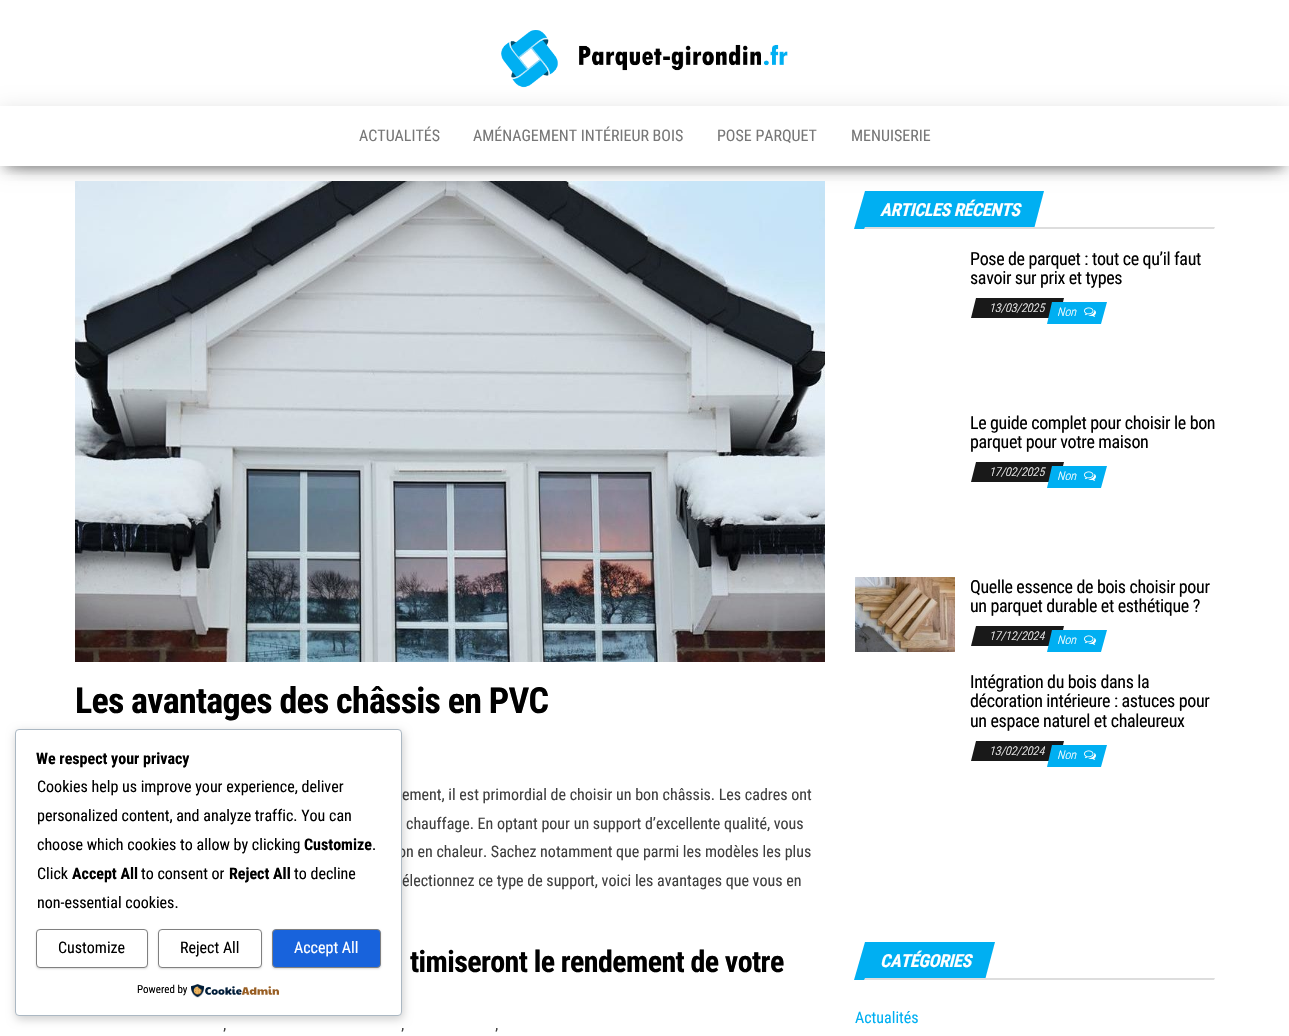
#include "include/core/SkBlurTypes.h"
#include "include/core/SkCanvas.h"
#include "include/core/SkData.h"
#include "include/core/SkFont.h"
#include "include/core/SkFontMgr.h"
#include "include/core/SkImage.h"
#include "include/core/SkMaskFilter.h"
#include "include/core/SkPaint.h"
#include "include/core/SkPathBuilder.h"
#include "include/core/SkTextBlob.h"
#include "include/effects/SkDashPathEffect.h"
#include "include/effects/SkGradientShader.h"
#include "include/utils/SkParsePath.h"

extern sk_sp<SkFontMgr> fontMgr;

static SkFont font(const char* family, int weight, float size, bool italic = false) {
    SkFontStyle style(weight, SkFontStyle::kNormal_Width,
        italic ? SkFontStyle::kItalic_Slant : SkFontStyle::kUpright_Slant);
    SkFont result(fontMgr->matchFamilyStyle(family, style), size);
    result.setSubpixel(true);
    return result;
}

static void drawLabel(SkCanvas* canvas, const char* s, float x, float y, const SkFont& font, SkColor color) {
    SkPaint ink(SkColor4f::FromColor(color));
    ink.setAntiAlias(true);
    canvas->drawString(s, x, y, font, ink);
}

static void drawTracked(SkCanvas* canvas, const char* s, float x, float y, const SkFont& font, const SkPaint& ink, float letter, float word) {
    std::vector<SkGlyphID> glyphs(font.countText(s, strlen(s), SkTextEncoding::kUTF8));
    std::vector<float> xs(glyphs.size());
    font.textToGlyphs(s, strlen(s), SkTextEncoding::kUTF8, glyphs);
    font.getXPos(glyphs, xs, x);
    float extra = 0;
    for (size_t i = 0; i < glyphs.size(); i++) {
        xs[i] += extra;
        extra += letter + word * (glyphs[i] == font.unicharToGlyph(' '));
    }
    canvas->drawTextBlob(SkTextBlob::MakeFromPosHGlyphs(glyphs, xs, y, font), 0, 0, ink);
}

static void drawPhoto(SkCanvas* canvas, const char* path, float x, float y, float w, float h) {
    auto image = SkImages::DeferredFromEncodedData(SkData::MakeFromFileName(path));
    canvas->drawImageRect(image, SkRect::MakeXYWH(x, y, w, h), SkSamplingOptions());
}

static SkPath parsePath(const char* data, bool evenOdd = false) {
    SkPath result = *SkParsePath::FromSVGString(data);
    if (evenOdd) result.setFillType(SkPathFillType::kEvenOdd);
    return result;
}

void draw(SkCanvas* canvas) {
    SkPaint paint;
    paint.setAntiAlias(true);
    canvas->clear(0xFFFFFFFF);
    canvas->save();
    canvas->clipPath(parsePath("M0 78H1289V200H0ZM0 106H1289V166H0Z", true), true);
    paint.setColor(0x1F000000);
    paint.setMaskFilter(SkMaskFilter::MakeBlur(kNormal_SkBlurStyle, 10));
    canvas->drawRect(SkRect::MakeXYWH(0, 109, 1289, 60), paint);
    paint.setMaskFilter(nullptr);
    canvas->restore();
    drawPhoto(canvas, "assets/img1.png", 501, 30, 287, 58);
    canvas->save();
    canvas->clipRect(SkRect::MakeXYWH(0, 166, 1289, 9));
    paint.setColor(0x33000000);
    paint.setMaskFilter(SkMaskFilter::MakeBlur(kNormal_SkBlurStyle, 5));
    canvas->drawRect(SkRect::MakeXYWH(5, 119, 1279, 50), paint);
    paint.setMaskFilter(nullptr);
    canvas->restore();
    canvas->save();
    canvas->clipRect(SkRect::MakeXYWH(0, 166, 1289, 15));
    paint.setColor(0x6B000000);
    paint.setMaskFilter(SkMaskFilter::MakeBlur(kNormal_SkBlurStyle, 10));
    canvas->drawRect(SkRect::MakeXYWH(12, 128, 1265, 36), paint);
    paint.setMaskFilter(nullptr);
    canvas->restore();
    SkFont font1 = font("Roboto Condensed", 400, 16);
    drawLabel(canvas, "ACTUALITÉS", 359, 141, font1, 0xFF777777);
    drawLabel(canvas, "AMÉNAGEMENT INTÉRIEUR BOIS", 473, 141, font1, 0xFF777777);
    drawLabel(canvas, "POSE PARQUET", 717, 141, font1, 0xFF777777);
    drawLabel(canvas, "MENUISERIE", 851, 141, font1, 0xFF777777);
    drawPhoto(canvas, "assets/img2.png", 75, 181, 750, 481);
    SkFont font2 = font("Roboto Condensed", 700, 36);
    paint.setColor(0xFF000000);
    drawTracked(canvas, "Les avantages des châssis en PVC", 75, 713, font2, paint, -0.75f, 0);
    drawLabel(canvas, "ement, il est primordial de choisir un bon châssis. Les cadres ont", 402, 800, font1, 0xFF404040);
    drawLabel(canvas, "chauffage. En optant pour un support d’excellente qualité, vous", 406, 829, font1, 0xFF404040);
    drawLabel(canvas, "on en chaleur. Sachez notamment que parmi les modèles les plus", 398, 857, font1, 0xFF404040);
    drawLabel(canvas, "électionnez ce type de support, voici les avantages que vous en", 402, 886, font1, 0xFF404040);
    SkFont font3 = font("Roboto Condensed", 700, 30);
    drawTracked(canvas, "timiseront le rendement de votre", 410, 972, font3, paint, -0.6f, 0);
    drawLabel(canvas, "’", 223, 1040, font1, 0xFF404040);
    drawLabel(canvas, "’", 401, 1040, font1, 0xFF404040);
    drawLabel(canvas, "’", 495, 1040, font1, 0xFF404040);
    paint.setColor(0xFF00AFF2);
    canvas->drawPath(parsePath("M865 191H1044L1034 229H854Z"), paint);
    SkFont font4 = font("Roboto Condensed", 700, 18, true);
    paint.setColor(0xFFFFFFFF);
    drawTracked(canvas, "ARTICLES RÉCENTS", 880, 216, font4, paint, -0.35f, 0);
    paint.setColor(0xFFDDDDDD);
    canvas->drawPath(parsePath("M865 227H1215L1214 229H864Z"), paint);
    SkFont font5 = font("Roboto Condensed", 400, 18);
    paint.setColor(0xFF000000);
    drawTracked(canvas, "Pose de parquet : tout ce qu’il faut", 970, 265, font5, paint, -0.35f, 0);
    drawTracked(canvas, "savoir sur prix et types", 970, 284, font5, paint, -0.35f, 0);
    paint.setColor(0xFF191919);
    canvas->drawPath(parsePath("M976 298H1064L1059 318H971Z"), paint);
    SkFont font6 = font("Roboto Condensed", 300, 12, true);
    drawLabel(canvas, "13/03/2025", 989, 312, font6, 0xFFFFFFFF);
    paint.setColor(0xFF00AFF2);
    canvas->drawPath(parsePath("M1052 302H1107L1101 324H1047Z"), paint);
    drawLabel(canvas, "Non", 1057, 316, font6, 0xFFFFFFFF);
    drawPhoto(canvas, "assets/img3.png", 1084, 307, 12, 10);
    paint.setColor(0xFF000000);
    drawTracked(canvas, "Le guide complet pour choisir le bon", 970, 429, font5, paint, -0.35f, 0);
    drawTracked(canvas, "parquet pour votre maison", 970, 448, font5, paint, -0.35f, 0);
    paint.setColor(0xFF191919);
    canvas->drawPath(parsePath("M976 462H1064L1059 482H971Z"), paint);
    drawLabel(canvas, "17/02/2025", 989, 476, font6, 0xFFFFFFFF);
    paint.setColor(0xFF00AFF2);
    canvas->drawPath(parsePath("M1052 466H1107L1101 488H1047Z"), paint);
    drawLabel(canvas, "Non", 1057, 480, font6, 0xFFFFFFFF);
    drawPhoto(canvas, "assets/img3.png", 1084, 471, 12, 10);
    drawPhoto(canvas, "assets/img4.png", 855, 577, 100, 75);
    paint.setColor(0xFF000000);
    drawTracked(canvas, "Quelle essence de bois choisir pour", 970, 593, font5, paint, -0.35f, 0);
    drawTracked(canvas, "un parquet durable et esthétique ?", 970, 612, font5, paint, -0.35f, 0);
    paint.setColor(0xFF191919);
    canvas->drawPath(parsePath("M976 626H1064L1059 646H971Z"), paint);
    drawLabel(canvas, "17/12/2024", 989, 640, font6, 0xFFFFFFFF);
    paint.setColor(0xFF00AFF2);
    canvas->drawPath(parsePath("M1052 630H1107L1101 652H1047Z"), paint);
    drawLabel(canvas, "Non", 1057, 644, font6, 0xFFFFFFFF);
    drawPhoto(canvas, "assets/img3.png", 1084, 635, 12, 10);
    paint.setColor(0xFF000000);
    drawTracked(canvas, "Intégration du bois dans la", 970, 688, font5, paint, -0.35f, 0);
    drawTracked(canvas, "décoration intérieure : astuces pour", 970, 707, font5, paint, -0.35f, 0);
    drawTracked(canvas, "un espace naturel et chaleureux", 970, 727, font5, paint, -0.35f, 0);
    paint.setColor(0xFF191919);
    canvas->drawPath(parsePath("M976 741H1064L1059 761H971Z"), paint);
    drawLabel(canvas, "13/02/2024", 989, 755, font6, 0xFFFFFFFF);
    paint.setColor(0xFF00AFF2);
    canvas->drawPath(parsePath("M1052 745H1107L1101 767H1047Z"), paint);
    drawLabel(canvas, "Non", 1057, 759, font6, 0xFFFFFFFF);
    drawPhoto(canvas, "assets/img3.png", 1084, 750, 12, 10);
    canvas->drawPath(parsePath("M865 942H995L985 980H854Z"), paint);
    paint.setColor(0xFFFFFFFF);
    drawTracked(canvas, "CATÉGORIES", 880, 967, font4, paint, -0.35f, 0);
    paint.setColor(0xFFDDDDDD);
    canvas->drawPath(parsePath("M865 978H1215L1214 980H864Z"), paint);
    drawLabel(canvas, "Actualités", 855, 1023, font1, 0xFF00AFF2);
    paint.setColor(0x33000000);
    paint.setMaskFilter(SkMaskFilter::MakeBlur(kNormal_SkBlurStyle, 5));
    canvas->drawRoundRect(SkRect::MakeXYWH(16, 732, 387, 287), 4, 4, paint);
    paint.setMaskFilter(nullptr);
    paint.setColor(0xFFFFFFFF);
    canvas->drawRoundRect(SkRect::MakeXYWH(15.5f, 729.5f, 386, 286), 3.5f, 3.5f, paint);
    paint.setStroke(true);
    paint.setStrokeWidth(1);
    paint.setColor(0xFFABB8C3);
    canvas->drawRoundRect(SkRect::MakeXYWH(15.5f, 729.5f, 386, 286), 3.5f, 3.5f, paint);
    SkFont font7 = font("Roboto Condensed", 700, 16);
    drawLabel(canvas, "We respect your privacy", 36, 764, font7, 0xFF000000);
    drawLabel(canvas, "Cookies help us improve your experience, deliver", 37, 792, font1, 0xFF000000);
    drawLabel(canvas, "personalized content, and analyze traffic. You can", 37, 821, font1, 0xFF000000);
    drawLabel(canvas, "choose which cookies to allow by clicking", 37, 850, font1, 0xFF000000);
    drawLabel(canvas, "Customize", 304, 850, font7, 0xFF000000);
    drawLabel(canvas, ".", 372, 850, font1, 0xFF000000);
    drawLabel(canvas, "Click", 37, 879, font1, 0xFF000000);
    drawLabel(canvas, "Accept All", 72, 879, font7, 0xFF000000);
    drawLabel(canvas, "to consent or", 141, 879, font1, 0xFF000000);
    drawLabel(canvas, "Reject All", 229, 879, font7, 0xFF000000);
    drawLabel(canvas, "to decline", 294, 879, font1, 0xFF000000);
    drawLabel(canvas, "non-essential cookies.", 37, 908, font1, 0xFF000000);
    paint.setStroke(false);
    paint.setColor(0x26000000);
    paint.setMaskFilter(SkMaskFilter::MakeBlur(kNormal_SkBlurStyle, 1));
    canvas->drawRoundRect(SkRect::MakeXYWH(36, 930, 112, 39), 4, 4, paint);
    paint.setMaskFilter(nullptr);
    paint.setColor(0xFFFFFFFF);
    canvas->drawRoundRect(SkRect::MakeXYWH(36.5f, 929.5f, 111, 38), 3.5f, 3.5f, paint);
    paint.setStroke(true);
    paint.setColor(0xFF808080);
    canvas->drawRoundRect(SkRect::MakeXYWH(36.5f, 929.5f, 111, 38), 3.5f, 3.5f, paint);
    drawLabel(canvas, "Customize", 58, 953, font1, 0xFF000000);
    paint.setStroke(false);
    paint.setColor(0x26000000);
    paint.setMaskFilter(SkMaskFilter::MakeBlur(kNormal_SkBlurStyle, 1));
    canvas->drawRoundRect(SkRect::MakeXYWH(158, 930, 104, 39), 4, 4, paint);
    paint.setMaskFilter(nullptr);
    paint.setColor(0xFFFFFFFF);
    canvas->drawRoundRect(SkRect::MakeXYWH(158.5f, 929.5f, 103, 38), 3.5f, 3.5f, paint);
    paint.setStroke(true);
    paint.setColor(0xFF808080);
    canvas->drawRoundRect(SkRect::MakeXYWH(158.5f, 929.5f, 103, 38), 3.5f, 3.5f, paint);
    drawLabel(canvas, "Reject All", 180, 953, font1, 0xFF000000);
    paint.setStroke(false);
    paint.setColor(0x26000000);
    paint.setMaskFilter(SkMaskFilter::MakeBlur(kNormal_SkBlurStyle, 1));
    canvas->drawRoundRect(SkRect::MakeXYWH(272, 930, 109, 39), 4, 4, paint);
    paint.setMaskFilter(nullptr);
    paint.setColor(0xFF1863DC);
    canvas->drawRoundRect(SkRect::MakeXYWH(272.5f, 929.5f, 108, 38), 3.5f, 3.5f, paint);
    paint.setStroke(true);
    paint.setColor(0xFF808080);
    canvas->drawRoundRect(SkRect::MakeXYWH(272.5f, 929.5f, 108, 38), 3.5f, 3.5f, paint);
    drawLabel(canvas, "Accept All", 294, 953, font1, 0xFFFFFFFF);
    SkFont font8 = font("Roboto Condensed", 400, 11);
    drawLabel(canvas, "Powered by", 137, 993, font8, 0xFF000000);
    drawPhoto(canvas, "assets/img5.png", 191, 984, 88, 14);
}
